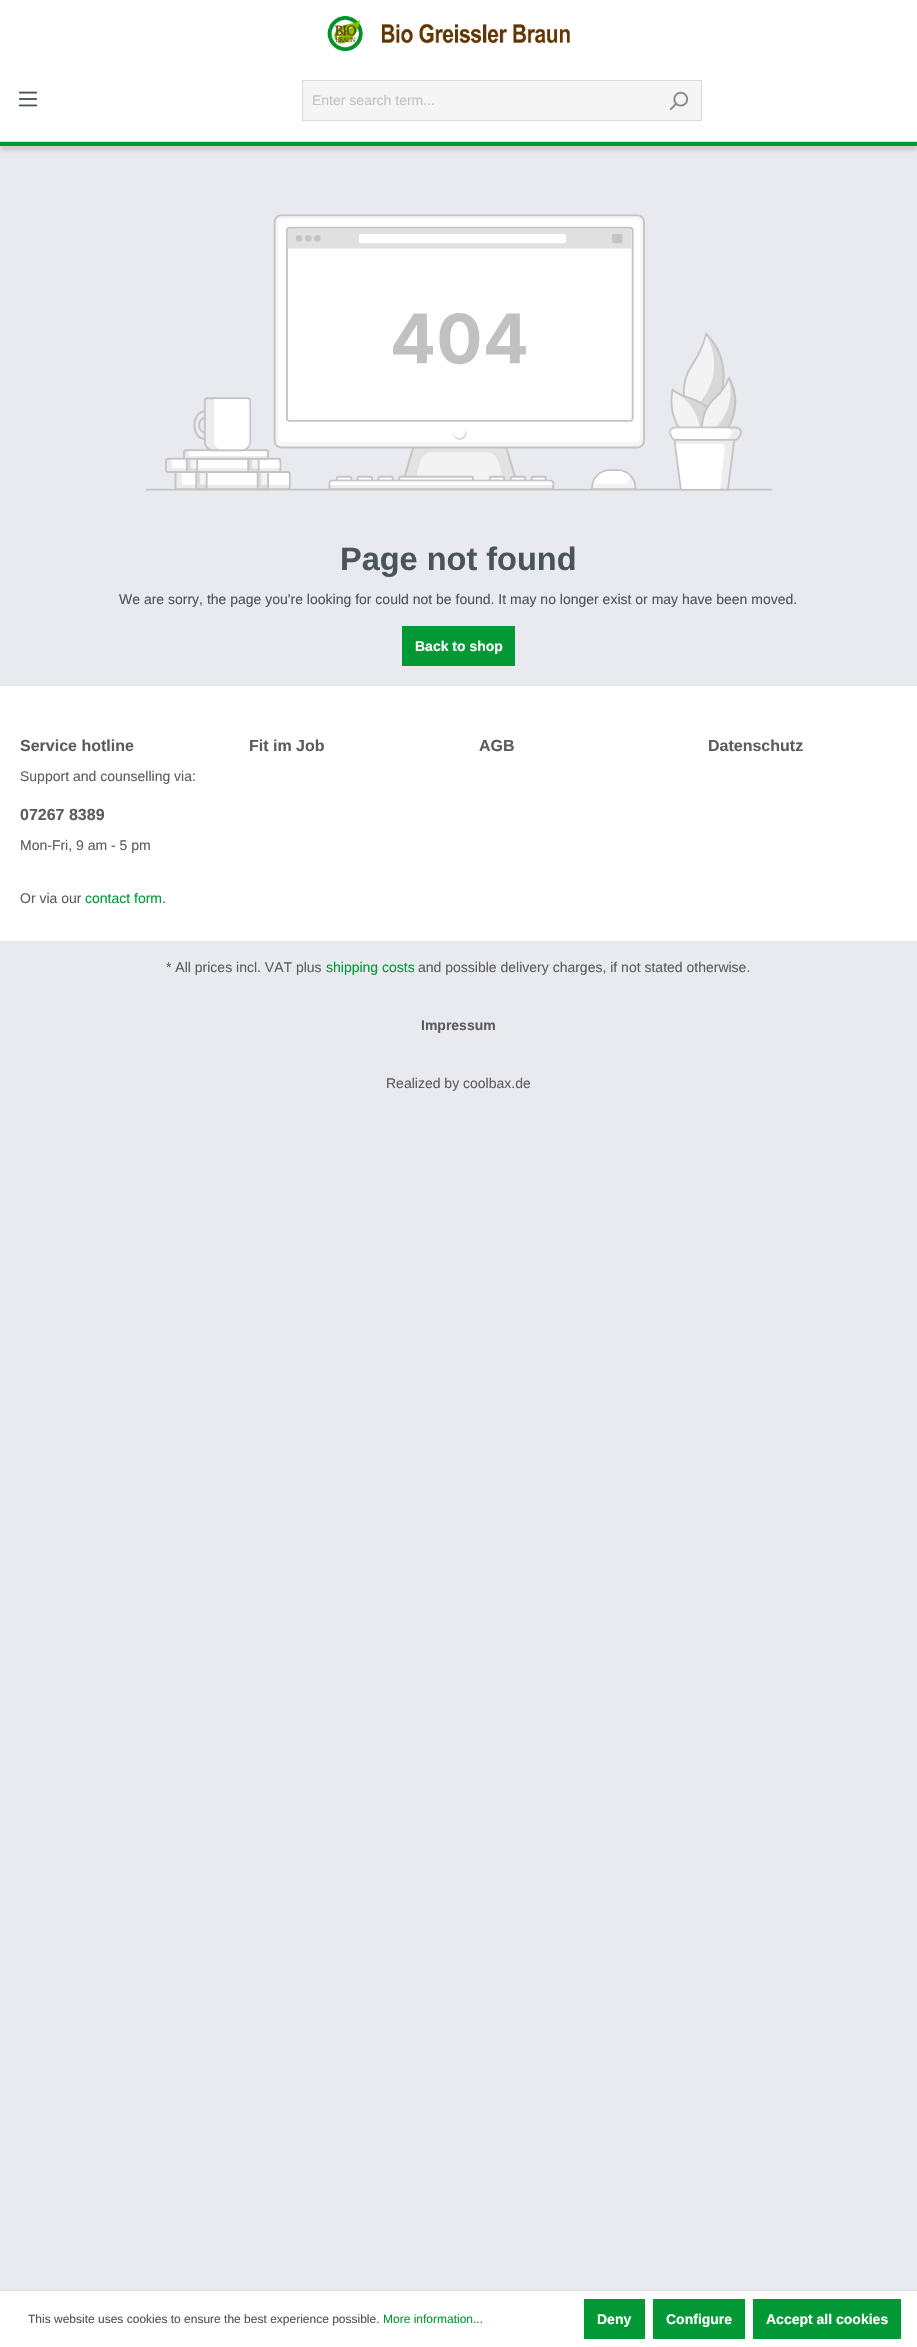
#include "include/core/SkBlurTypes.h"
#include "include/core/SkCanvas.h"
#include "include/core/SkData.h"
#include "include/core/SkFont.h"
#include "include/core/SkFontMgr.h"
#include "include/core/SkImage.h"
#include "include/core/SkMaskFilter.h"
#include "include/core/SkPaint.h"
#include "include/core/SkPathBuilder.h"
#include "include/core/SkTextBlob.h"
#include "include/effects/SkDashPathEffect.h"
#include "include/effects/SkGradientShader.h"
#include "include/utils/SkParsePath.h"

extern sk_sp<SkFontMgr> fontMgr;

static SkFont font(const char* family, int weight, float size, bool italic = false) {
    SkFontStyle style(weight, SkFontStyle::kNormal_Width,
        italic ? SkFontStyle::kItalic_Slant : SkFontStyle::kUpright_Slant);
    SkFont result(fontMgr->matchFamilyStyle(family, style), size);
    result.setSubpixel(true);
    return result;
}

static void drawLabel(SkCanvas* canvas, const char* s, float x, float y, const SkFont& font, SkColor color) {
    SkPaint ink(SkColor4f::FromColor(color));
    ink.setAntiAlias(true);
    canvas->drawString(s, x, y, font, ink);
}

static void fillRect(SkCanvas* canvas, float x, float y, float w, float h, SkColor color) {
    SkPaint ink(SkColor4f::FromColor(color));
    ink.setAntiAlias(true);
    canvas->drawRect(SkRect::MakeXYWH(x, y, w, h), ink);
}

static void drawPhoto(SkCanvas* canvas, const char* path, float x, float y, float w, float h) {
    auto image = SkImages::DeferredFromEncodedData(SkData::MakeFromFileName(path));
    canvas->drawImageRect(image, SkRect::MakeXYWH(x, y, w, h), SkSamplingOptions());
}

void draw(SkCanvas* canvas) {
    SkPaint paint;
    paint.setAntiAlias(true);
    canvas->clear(0xFFE9E9F0);
    fillRect(canvas, 0, 0, 917, 141, 0xFFFFFFFF);
    drawPhoto(canvas, "assets/img1.png", 327, 16, 243, 35);
    drawPhoto(canvas, "assets/img2.png", 18, 91, 20, 16);
    paint.setColor(0xFFF5F5F5);
    canvas->drawRect(SkRect::MakeXYWH(302.5f, 80.5f, 353, 40), paint);
    paint.setStroke(true);
    paint.setStrokeWidth(1);
    paint.setColor(0xFFDADAE5);
    canvas->drawRect(SkRect::MakeXYWH(302.5f, 80.5f, 353, 40), paint);
    SkFont font1 = font("Liberation Sans", 400, 14);
    drawLabel(canvas, "Enter search term...", 312, 105, font1, 0xFFC3C3C3);
    fillRect(canvas, 655, 81, 46, 39, 0xFFF5F5F5);
    fillRect(canvas, 655, 80, 47, 1, 0xFFDADAE5);
    fillRect(canvas, 701, 80, 1, 41, 0xFFDADAE5);
    fillRect(canvas, 655, 120, 47, 1, 0xFFDADAE5);
    drawPhoto(canvas, "assets/img3.png", 669, 91, 20, 20);
    paint.setStroke(false);
    paint.setColor(0x26000000);
    paint.setMaskFilter(SkMaskFilter::MakeBlur(kNormal_SkBlurStyle, 2));
    canvas->drawRect(SkRect::MakeXYWH(0, 145, 917, 5), paint);
    paint.setMaskFilter(nullptr);
    fillRect(canvas, 0, 141, 917, 1, 0xFFDADAE5);
    fillRect(canvas, 0, 142, 917, 4, 0xFF029835);
    drawPhoto(canvas, "assets/img4.png", 146, 214, 626, 277);
    SkFont font2 = font("Liberation Sans", 700, 32.5f);
    drawLabel(canvas, "Page not found", 340, 570, font2, 0xFF4A545B);
    drawLabel(canvas, "We are sorry, the page you're looking for could not be found. It may no longer exist or may have been moved.", 119, 604, font1, 0xFF4A545B);
    fillRect(canvas, 402, 626, 113, 40, 0xFF029835);
    SkFont font3 = font("Liberation Sans", 700, 14);
    drawLabel(canvas, "Back to shop", 415, 651, font3, 0xFFFFFFFF);
    fillRect(canvas, 0, 686, 917, 255, 0xFFFFFFFF);
    SkFont font4 = font("Liberation Sans", 700, 16);
    drawLabel(canvas, "Service hotline", 20, 751, font4, 0xFF5C5C5C);
    drawLabel(canvas, "Support and counselling via:", 20, 781, font1, 0xFF5C5C5C);
    drawLabel(canvas, "07267 8389", 20, 820, font4, 0xFF5C5C5C);
    drawLabel(canvas, "Mon-Fri, 9 am - 5 pm", 20, 850, font1, 0xFF5C5C5C);
    drawLabel(canvas, "Or via our", 20, 903, font1, 0xFF5C5C5C);
    drawLabel(canvas, "contact form", 85, 903, font1, 0xFF029835);
    drawLabel(canvas, ".", 162, 903, font1, 0xFF5C5C5C);
    drawLabel(canvas, "Fit im Job", 249, 751, font4, 0xFF5C5C5C);
    drawLabel(canvas, "AGB", 479, 751, font4, 0xFF5C5C5C);
    drawLabel(canvas, "Datenschutz", 708, 751, font4, 0xFF5C5C5C);
    drawLabel(canvas, "* All prices incl. VAT plus", 166, 972, font1, 0xFF5C5C5C);
    drawLabel(canvas, "shipping costs", 326, 972, font1, 0xFF029835);
    drawLabel(canvas, "and possible delivery charges, if not stated otherwise.", 418, 972, font1, 0xFF5C5C5C);
    drawLabel(canvas, "Impressum", 421, 1030, font3, 0xFF5C5C5C);
    drawLabel(canvas, "Realized by coolbax.de", 386, 1088, font1, 0xFF5C5C5C);
    fillRect(canvas, 0, 2291, 917, 56, 0xFFFFFFFF);
    fillRect(canvas, 0, 2290, 917, 1, 0xFFDADAE5);
    SkFont font5 = font("Liberation Sans", 400, 12);
    drawLabel(canvas, "This website uses cookies to ensure the best experience possible.", 28, 2323, font5, 0xFF4A545B);
    drawLabel(canvas, "More information...", 383, 2323, font5, 0xFF029835);
    fillRect(canvas, 584, 2299, 61, 40, 0xFF029835);
    drawLabel(canvas, "Deny", 597, 2324, font3, 0xFFFFFFFF);
    fillRect(canvas, 653, 2299, 92, 40, 0xFF029835);
    drawLabel(canvas, "Configure", 666, 2324, font3, 0xFFFFFFFF);
    fillRect(canvas, 753, 2299, 148, 40, 0xFF029835);
    drawLabel(canvas, "Accept all cookies", 766, 2324, font3, 0xFFFFFFFF);
}
